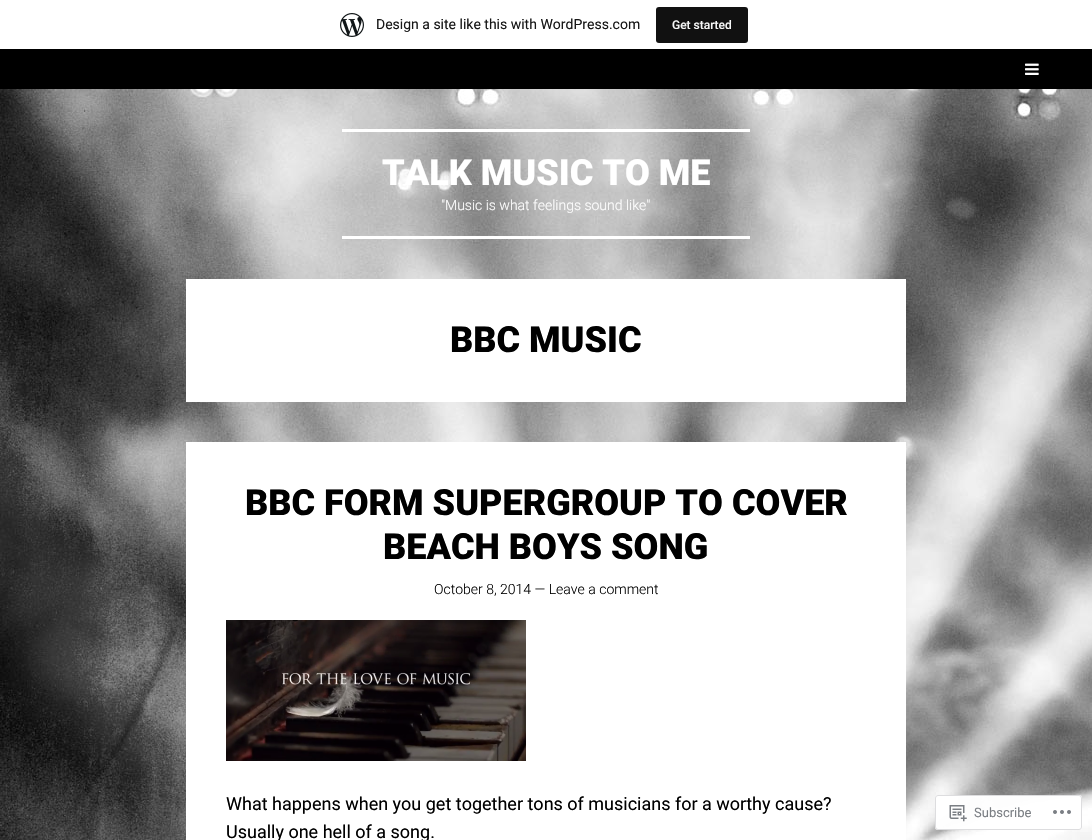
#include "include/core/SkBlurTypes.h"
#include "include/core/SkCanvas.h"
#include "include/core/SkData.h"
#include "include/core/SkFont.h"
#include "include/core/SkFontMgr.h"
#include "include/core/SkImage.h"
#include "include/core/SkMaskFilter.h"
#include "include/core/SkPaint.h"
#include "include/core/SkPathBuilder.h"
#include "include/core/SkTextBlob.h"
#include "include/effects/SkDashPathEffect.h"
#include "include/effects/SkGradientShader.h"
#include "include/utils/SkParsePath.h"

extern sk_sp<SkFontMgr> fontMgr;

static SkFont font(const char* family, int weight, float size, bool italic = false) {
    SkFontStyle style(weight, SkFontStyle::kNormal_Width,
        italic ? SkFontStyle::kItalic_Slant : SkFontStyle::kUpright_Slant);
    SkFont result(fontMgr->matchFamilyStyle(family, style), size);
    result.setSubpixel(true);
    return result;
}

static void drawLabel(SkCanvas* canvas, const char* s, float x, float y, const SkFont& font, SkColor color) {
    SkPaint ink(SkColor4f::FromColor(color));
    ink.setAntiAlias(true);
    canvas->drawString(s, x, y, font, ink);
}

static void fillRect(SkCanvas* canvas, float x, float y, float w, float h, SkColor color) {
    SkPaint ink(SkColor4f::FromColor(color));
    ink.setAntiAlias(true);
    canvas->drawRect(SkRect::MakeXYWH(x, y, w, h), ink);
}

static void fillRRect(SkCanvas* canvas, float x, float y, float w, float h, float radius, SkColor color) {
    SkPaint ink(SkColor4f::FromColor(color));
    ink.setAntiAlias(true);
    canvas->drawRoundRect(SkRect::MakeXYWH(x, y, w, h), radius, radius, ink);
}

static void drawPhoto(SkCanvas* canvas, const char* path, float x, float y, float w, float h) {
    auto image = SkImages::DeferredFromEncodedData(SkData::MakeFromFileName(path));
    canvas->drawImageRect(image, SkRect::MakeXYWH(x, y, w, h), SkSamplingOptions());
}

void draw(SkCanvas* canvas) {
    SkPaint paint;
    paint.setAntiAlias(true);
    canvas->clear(0xFFFFFFFF);
    drawPhoto(canvas, "assets/img1.png", 0, 89, 1092, 751);
    drawPhoto(canvas, "assets/img2.png", 340, 13, 24, 24);
    SkFont font1 = font("Roboto", 400, 14);
    drawLabel(canvas, "Design a site like this with WordPress.com", 376, 29, font1, 0xFF171717);
    fillRRect(canvas, 656, 7, 92, 36, 3, 0xFF111111);
    SkFont font2 = font("Roboto", 500, 12);
    drawLabel(canvas, "Get started", 672, 29, font2, 0xFFF6F7F7);
    fillRect(canvas, 0, 49, 1092, 40, 0xFF000000);
    drawPhoto(canvas, "assets/img3.png", 1025, 63, 14, 12);
    fillRect(canvas, 342, 129, 408, 3, 0xFFFFFFFF);
    fillRect(canvas, 342, 236, 408, 3, 0xFFFFFFFF);
    SkFont font3 = font("Roboto", 900, 36);
    drawLabel(canvas, "TALK MUSIC TO ME", 382, 185, font3, 0xFFFFFFFF);
    SkFont font4 = font("Roboto", 300, 14);
    drawLabel(canvas, "\"Music is what feelings sound like\"", 441, 210, font4, 0xFFFFFFFF);
    fillRect(canvas, 186, 279, 720, 123, 0xFFFFFFFF);
    drawLabel(canvas, "BBC MUSIC", 450, 352, font3, 0xFF000000);
    fillRect(canvas, 186, 442, 720, 398, 0xFFFFFFFF);
    drawLabel(canvas, "BBC FORM SUPERGROUP TO COVER", 245, 515, font3, 0xFF000000);
    drawLabel(canvas, "BEACH BOYS SONG", 383, 559, font3, 0xFF000000);
    drawLabel(canvas, "October 8, 2014 — Leave a comment", 434, 594, font4, 0xFF000000);
    drawPhoto(canvas, "assets/img4.png", 226, 620, 300, 141);
    SkFont font5 = font("Roboto", 400, 18);
    drawLabel(canvas, "What happens when you get together tons of musicians for a worthy cause?", 226, 810, font5, 0xFF000000);
    drawLabel(canvas, "Usually one hell of a song.", 226, 838, font5, 0xFF000000);
    fillRRect(canvas, 935, 795, 147, 35, 3, 0xFAFFFFFF);
    paint.setStroke(true);
    paint.setStrokeWidth(1);
    paint.setColor(0xFADCDCDE);
    canvas->drawRoundRect(SkRect::MakeXYWH(935.5f, 795.5f, 146, 34), 2.5f, 2.5f, paint);
    drawPhoto(canvas, "assets/img5.png", 949, 805, 18, 17);
    SkFont font6 = font("Roboto", 400, 13);
    drawLabel(canvas, "Subscribe", 974, 817, font6, 0xFF7B7F84);
    drawPhoto(canvas, "assets/img6.png", 1053, 810, 18, 4);
}
